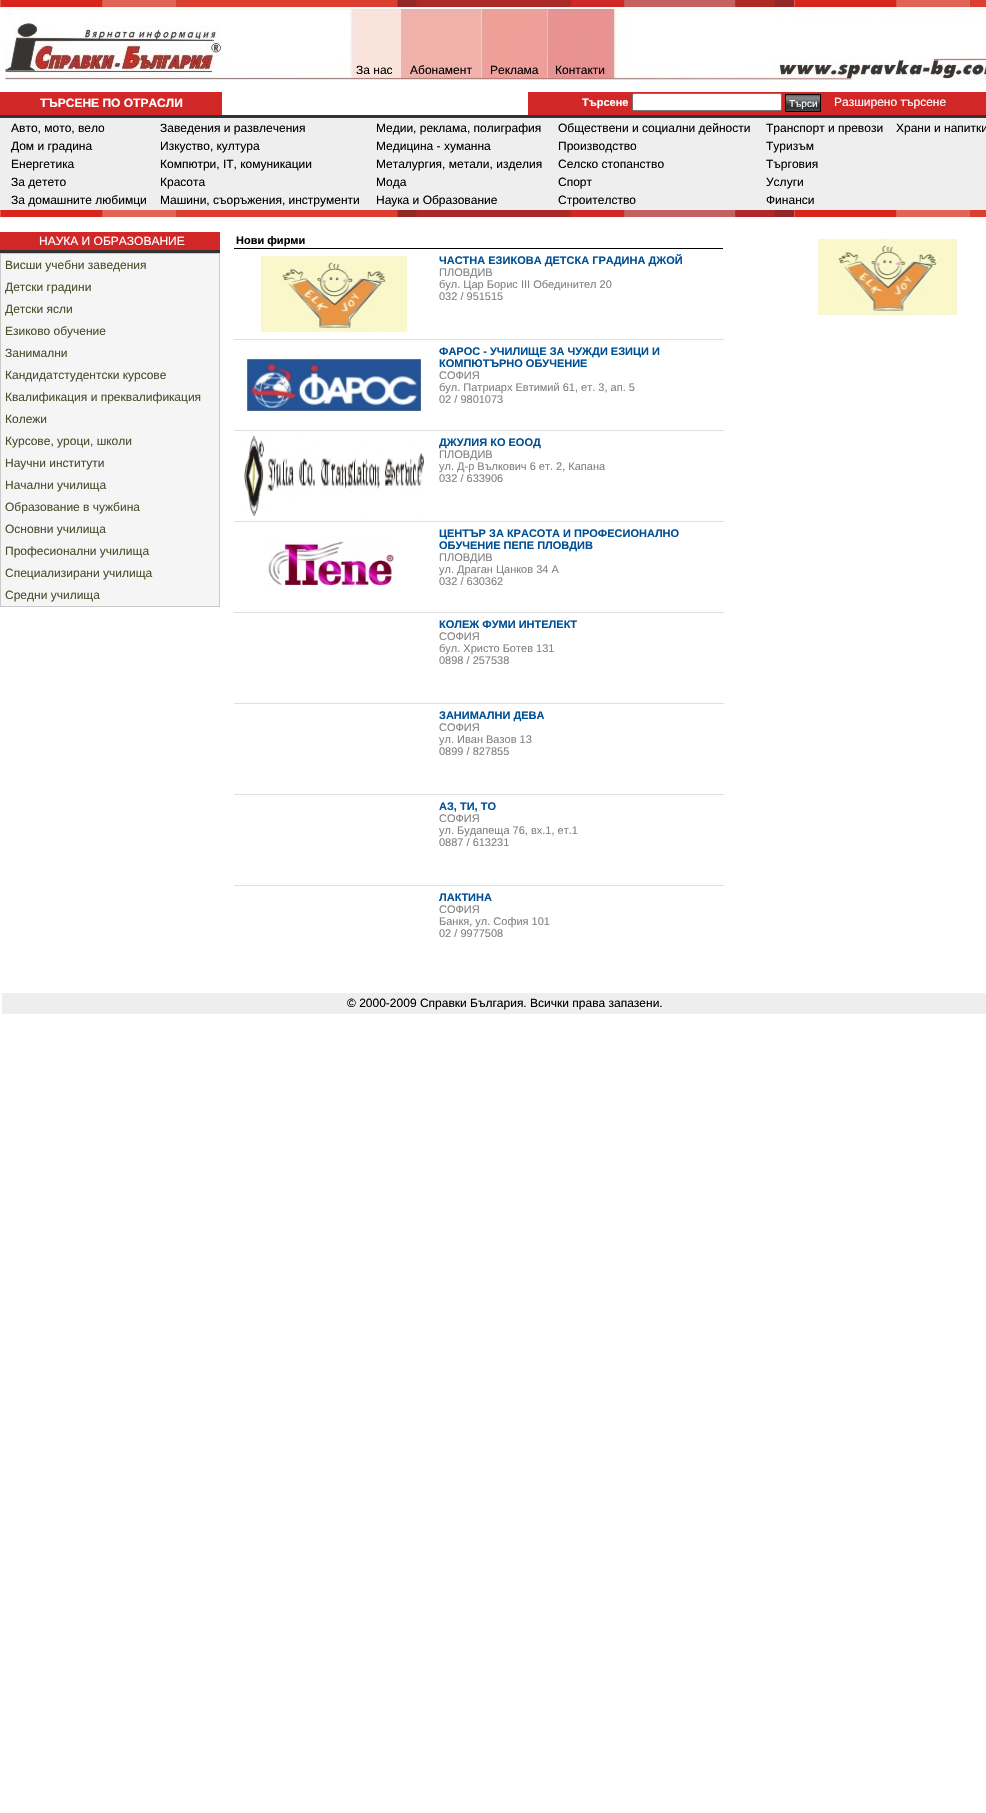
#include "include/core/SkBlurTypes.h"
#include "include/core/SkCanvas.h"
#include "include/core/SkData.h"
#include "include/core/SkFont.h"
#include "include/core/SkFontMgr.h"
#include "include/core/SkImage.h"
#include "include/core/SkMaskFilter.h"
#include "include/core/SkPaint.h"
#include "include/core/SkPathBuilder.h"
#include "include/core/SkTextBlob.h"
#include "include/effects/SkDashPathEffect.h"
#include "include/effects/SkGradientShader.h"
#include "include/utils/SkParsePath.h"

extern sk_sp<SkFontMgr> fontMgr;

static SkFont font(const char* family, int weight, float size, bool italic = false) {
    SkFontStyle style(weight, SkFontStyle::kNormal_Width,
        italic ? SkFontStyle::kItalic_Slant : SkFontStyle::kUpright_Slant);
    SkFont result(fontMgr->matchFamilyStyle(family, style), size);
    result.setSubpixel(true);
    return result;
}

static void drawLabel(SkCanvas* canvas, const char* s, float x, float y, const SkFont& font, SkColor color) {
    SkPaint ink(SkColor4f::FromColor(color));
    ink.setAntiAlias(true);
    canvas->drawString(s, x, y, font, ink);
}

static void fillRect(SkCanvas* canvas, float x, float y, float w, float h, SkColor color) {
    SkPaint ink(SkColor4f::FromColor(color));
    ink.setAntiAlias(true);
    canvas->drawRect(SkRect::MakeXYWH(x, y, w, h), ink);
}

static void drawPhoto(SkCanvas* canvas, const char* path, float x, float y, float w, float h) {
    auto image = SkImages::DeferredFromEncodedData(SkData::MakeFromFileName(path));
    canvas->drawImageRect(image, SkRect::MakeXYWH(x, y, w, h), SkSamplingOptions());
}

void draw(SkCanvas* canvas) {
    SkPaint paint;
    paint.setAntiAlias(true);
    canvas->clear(0xFFFFFFFF);
    drawPhoto(canvas, "assets/img1.png", 0, 0, 986, 7);
    drawPhoto(canvas, "assets/img2.png", 5, 9, 981, 71);
    SkFont font1 = font("Liberation Sans", 400, 12);
    drawLabel(canvas, "За нас", 356, 74, font1, 0xFF000000);
    drawLabel(canvas, "Абонамент", 410, 74, font1, 0xFF000000);
    drawLabel(canvas, "Реклама", 490, 74, font1, 0xFF000000);
    drawLabel(canvas, "Контакти", 555, 74, font1, 0xFF000000);
    fillRect(canvas, 0, 92, 222, 23, 0xFFD12727);
    SkFont font2 = font("Liberation Sans", 700, 12);
    drawLabel(canvas, "ТЪРСЕНЕ ПО ОТРАСЛИ", 40, 107, font2, 0xFFFFFFFF);
    fillRect(canvas, 528, 92, 458, 23, 0xFFD12727);
    SkFont font3 = font("Liberation Sans", 700, 11);
    drawLabel(canvas, "Tърсене", 582, 106, font3, 0xFFFFFFFF);
    paint.setColor(0xFFFFFFFF);
    canvas->drawRoundRect(SkRect::MakeXYWH(632.5f, 93.5f, 149, 17), 1.5f, 1.5f, paint);
    paint.setStroke(true);
    paint.setStrokeWidth(1);
    paint.setColor(0xFF767676);
    canvas->drawRoundRect(SkRect::MakeXYWH(632.5f, 93.5f, 149, 17), 1.5f, 1.5f, paint);
    drawPhoto(canvas, "assets/img3.png", 786, 95, 34, 16);
    paint.setColor(0xFF000000);
    canvas->drawRect(SkRect::MakeXYWH(785.5f, 94.5f, 35, 17), paint);
    SkFont font4 = font("Liberation Sans", 400, 10);
    drawLabel(canvas, "Tърси", 789, 107, font4, 0xFFFFFFFF);
    drawLabel(canvas, "Разширено търсене", 834, 106, font1, 0xFFFFFFFF);
    fillRect(canvas, 0, 118, 986, 92, 0xFFEEEEEE);
    fillRect(canvas, 0, 115, 986, 3, 0xFF333333);
    drawLabel(canvas, "Авто, мото, вело", 11, 132, font1, 0xFF000000);
    drawLabel(canvas, "Дом и градина", 11, 150, font1, 0xFF000000);
    drawLabel(canvas, "Енергетика", 11, 168, font1, 0xFF000000);
    drawLabel(canvas, "За детето", 11, 186, font1, 0xFF000000);
    drawLabel(canvas, "За домашните любимци", 11, 204, font1, 0xFF000000);
    drawLabel(canvas, "Заведения и развлечения", 160, 132, font1, 0xFF000000);
    drawLabel(canvas, "Изкуство, култура", 160, 150, font1, 0xFF000000);
    drawLabel(canvas, "Компютри, IT, комуникации", 160, 168, font1, 0xFF000000);
    drawLabel(canvas, "Красота", 160, 186, font1, 0xFF000000);
    drawLabel(canvas, "Машини, съоръжения, инструменти", 160, 204, font1, 0xFF000000);
    drawLabel(canvas, "Медии, реклама, полиграфия", 376, 132, font1, 0xFF000000);
    drawLabel(canvas, "Медицина - хуманна", 376, 150, font1, 0xFF000000);
    drawLabel(canvas, "Металургия, метали, изделия", 376, 168, font1, 0xFF000000);
    drawLabel(canvas, "Мода", 376, 186, font1, 0xFF000000);
    drawLabel(canvas, "Наука и Образование", 376, 204, font1, 0xFF000000);
    drawLabel(canvas, "Обществени и социални дейности", 558, 132, font1, 0xFF000000);
    drawLabel(canvas, "Производство", 558, 150, font1, 0xFF000000);
    drawLabel(canvas, "Селско стопанство", 558, 168, font1, 0xFF000000);
    drawLabel(canvas, "Спорт", 558, 186, font1, 0xFF000000);
    drawLabel(canvas, "Строителство", 558, 204, font1, 0xFF000000);
    drawLabel(canvas, "Транспорт и превози", 766, 132, font1, 0xFF000000);
    drawLabel(canvas, "Туризъм", 766, 150, font1, 0xFF000000);
    drawLabel(canvas, "Търговия", 766, 168, font1, 0xFF000000);
    drawLabel(canvas, "Услуги", 766, 186, font1, 0xFF000000);
    drawLabel(canvas, "Финанси", 766, 204, font1, 0xFF000000);
    drawLabel(canvas, "Храни и напитки", 896, 132, font1, 0xFF000000);
    drawPhoto(canvas, "assets/img1.png", 0, 210, 986, 7);
    fillRect(canvas, 0, 232, 220, 18, 0xFFD12727);
    fillRect(canvas, 0, 250, 220, 3, 0xFF333333);
    drawLabel(canvas, "НАУКА И ОБРАЗОВАНИЕ", 39, 245, font1, 0xFFFFFFFF);
    paint.setStroke(false);
    paint.setColor(0xFFF5F5F5);
    canvas->drawRect(SkRect::MakeXYWH(0.5f, 253.5f, 219, 353), paint);
    paint.setStroke(true);
    paint.setColor(0xFFCACACA);
    canvas->drawRect(SkRect::MakeXYWH(0.5f, 253.5f, 219, 353), paint);
    drawLabel(canvas, "Висши учебни заведения", 5, 269, font1, 0xFF46512D);
    drawLabel(canvas, "Детски градини", 5, 291, font1, 0xFF46512D);
    drawLabel(canvas, "Детски ясли", 5, 313, font1, 0xFF46512D);
    drawLabel(canvas, "Езиково обучение", 5, 335, font1, 0xFF46512D);
    drawLabel(canvas, "Занимални", 5, 357, font1, 0xFF46512D);
    drawLabel(canvas, "Кандидатстудентски курсове", 5, 379, font1, 0xFF46512D);
    drawLabel(canvas, "Квалификация и преквалификация", 5, 401, font1, 0xFF46512D);
    drawLabel(canvas, "Колежи", 5, 423, font1, 0xFF46512D);
    drawLabel(canvas, "Курсове, уроци, школи", 5, 445, font1, 0xFF46512D);
    drawLabel(canvas, "Научни институти", 5, 467, font1, 0xFF46512D);
    drawLabel(canvas, "Начални училища", 5, 489, font1, 0xFF46512D);
    drawLabel(canvas, "Образование в чужбина", 5, 511, font1, 0xFF46512D);
    drawLabel(canvas, "Основни училища", 5, 533, font1, 0xFF46512D);
    drawLabel(canvas, "Професионални училища", 5, 555, font1, 0xFF46512D);
    drawLabel(canvas, "Специализирани училища", 5, 577, font1, 0xFF46512D);
    drawLabel(canvas, "Средни училища", 5, 599, font1, 0xFF46512D);
    fillRect(canvas, 234, 248, 489, 1, 0xFF000000);
    drawLabel(canvas, "Нови фирми", 236, 244, font3, 0xFF000000);
    drawLabel(canvas, "ЧАСТНА ЕЗИКОВА ДЕТСКА ГРАДИНА ДЖОЙ", 439, 264, font3, 0xFF005096);
    SkFont font5 = font("Liberation Sans", 400, 11);
    drawLabel(canvas, "ПЛОВДИВ", 439, 276, font5, 0xFF828282);
    drawLabel(canvas, "бул. Цар Борис ІІІ Обединител 20", 439, 288, font5, 0xFF828282);
    drawLabel(canvas, "032 / 951515", 439, 300, font5, 0xFF828282);
    fillRect(canvas, 234, 339, 490, 1, 0xFFE0E0E0);
    drawPhoto(canvas, "assets/img4.png", 260, 255, 148, 78);
    drawLabel(canvas, "ФАРОС - УЧИЛИЩЕ ЗА ЧУЖДИ ЕЗИЦИ И", 439, 355, font3, 0xFF005096);
    drawLabel(canvas, "КОМПЮТЪРНО ОБУЧЕНИЕ", 439, 367, font3, 0xFF005096);
    drawLabel(canvas, "СОФИЯ", 439, 379, font5, 0xFF828282);
    drawLabel(canvas, "бул. Патриарх Евтимий 61, ет. 3, ап. 5", 439, 391, font5, 0xFF828282);
    drawLabel(canvas, "02 / 9801073", 439, 403, font5, 0xFF828282);
    fillRect(canvas, 234, 430, 490, 1, 0xFFE0E0E0);
    drawPhoto(canvas, "assets/img5.png", 245, 358, 177, 55);
    fillRect(canvas, 234, 521, 490, 1, 0xFFE0E0E0);
    drawPhoto(canvas, "assets/img6.png", 244, 436, 180, 80);
    drawLabel(canvas, "ДЖУЛИЯ КО ЕООД", 439, 446, font3, 0xFF005096);
    drawLabel(canvas, "ПЛОВДИВ", 439, 458, font5, 0xFF828282);
    drawLabel(canvas, "ул. Д-р Вълкович 6 ет. 2, Капана", 439, 470, font5, 0xFF828282);
    drawLabel(canvas, "032 / 633906", 439, 482, font5, 0xFF828282);
    drawLabel(canvas, "ЦЕНТЪР ЗА КРАСОТА И ПРОФЕСИОНАЛНО", 439, 537, font3, 0xFF005096);
    drawLabel(canvas, "ОБУЧЕНИЕ ПЕПЕ ПЛОВДИВ", 439, 549, font3, 0xFF005096);
    drawLabel(canvas, "ПЛОВДИВ", 439, 561, font5, 0xFF828282);
    drawLabel(canvas, "ул. Драган Цанков 34 А", 439, 573, font5, 0xFF828282);
    drawLabel(canvas, "032 / 630362", 439, 585, font5, 0xFF828282);
    fillRect(canvas, 234, 612, 490, 1, 0xFFE0E0E0);
    drawPhoto(canvas, "assets/img7.png", 268, 541, 127, 46);
    drawLabel(canvas, "КОЛЕЖ ФУМИ ИНТЕЛЕКТ", 439, 628, font3, 0xFF005096);
    drawLabel(canvas, "СОФИЯ", 439, 640, font5, 0xFF828282);
    drawLabel(canvas, "бул. Христо Ботев 131", 439, 652, font5, 0xFF828282);
    drawLabel(canvas, "0898 / 257538", 439, 664, font5, 0xFF828282);
    fillRect(canvas, 234, 703, 490, 1, 0xFFE0E0E0);
    drawLabel(canvas, "ЗАНИМАЛНИ ДЕВА", 439, 719, font3, 0xFF005096);
    drawLabel(canvas, "СОФИЯ", 439, 731, font5, 0xFF828282);
    drawLabel(canvas, "ул. Иван Вазов 13", 439, 743, font5, 0xFF828282);
    drawLabel(canvas, "0899 / 827855", 439, 755, font5, 0xFF828282);
    fillRect(canvas, 234, 794, 490, 1, 0xFFE0E0E0);
    drawLabel(canvas, "АЗ, ТИ, ТО", 439, 810, font3, 0xFF005096);
    drawLabel(canvas, "СОФИЯ", 439, 822, font5, 0xFF828282);
    drawLabel(canvas, "ул. Будапеща 76, вх.1, ет.1", 439, 834, font5, 0xFF828282);
    drawLabel(canvas, "0887 / 613231", 439, 846, font5, 0xFF828282);
    fillRect(canvas, 234, 885, 490, 1, 0xFFE0E0E0);
    drawLabel(canvas, "ЛАКТИНА", 439, 901, font3, 0xFF005096);
    drawLabel(canvas, "СОФИЯ", 439, 913, font5, 0xFF828282);
    drawLabel(canvas, "Банкя, ул. София 101", 439, 925, font5, 0xFF828282);
    drawLabel(canvas, "02 / 9977508", 439, 937, font5, 0xFF828282);
    drawPhoto(canvas, "assets/img8.png", 817, 238, 141, 78);
    fillRect(canvas, 2, 993, 984, 21, 0xFFEEEEEE);
    drawLabel(canvas, "© 2000-2009 Справки България. Всички права запазени.", 347, 1007, font1, 0xFF000000);
}
